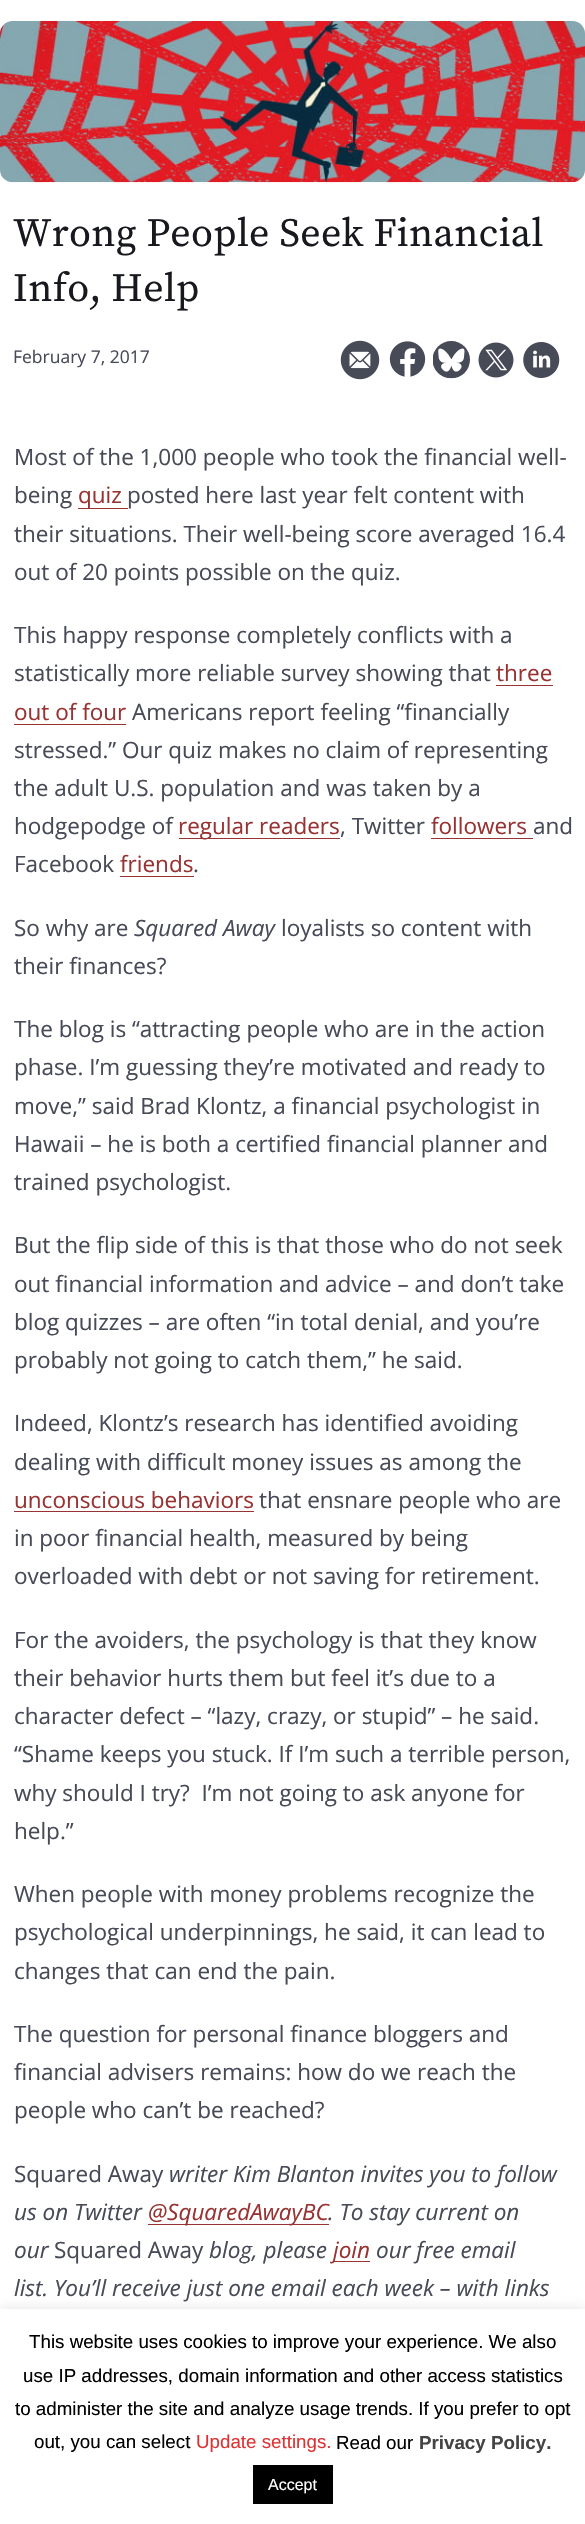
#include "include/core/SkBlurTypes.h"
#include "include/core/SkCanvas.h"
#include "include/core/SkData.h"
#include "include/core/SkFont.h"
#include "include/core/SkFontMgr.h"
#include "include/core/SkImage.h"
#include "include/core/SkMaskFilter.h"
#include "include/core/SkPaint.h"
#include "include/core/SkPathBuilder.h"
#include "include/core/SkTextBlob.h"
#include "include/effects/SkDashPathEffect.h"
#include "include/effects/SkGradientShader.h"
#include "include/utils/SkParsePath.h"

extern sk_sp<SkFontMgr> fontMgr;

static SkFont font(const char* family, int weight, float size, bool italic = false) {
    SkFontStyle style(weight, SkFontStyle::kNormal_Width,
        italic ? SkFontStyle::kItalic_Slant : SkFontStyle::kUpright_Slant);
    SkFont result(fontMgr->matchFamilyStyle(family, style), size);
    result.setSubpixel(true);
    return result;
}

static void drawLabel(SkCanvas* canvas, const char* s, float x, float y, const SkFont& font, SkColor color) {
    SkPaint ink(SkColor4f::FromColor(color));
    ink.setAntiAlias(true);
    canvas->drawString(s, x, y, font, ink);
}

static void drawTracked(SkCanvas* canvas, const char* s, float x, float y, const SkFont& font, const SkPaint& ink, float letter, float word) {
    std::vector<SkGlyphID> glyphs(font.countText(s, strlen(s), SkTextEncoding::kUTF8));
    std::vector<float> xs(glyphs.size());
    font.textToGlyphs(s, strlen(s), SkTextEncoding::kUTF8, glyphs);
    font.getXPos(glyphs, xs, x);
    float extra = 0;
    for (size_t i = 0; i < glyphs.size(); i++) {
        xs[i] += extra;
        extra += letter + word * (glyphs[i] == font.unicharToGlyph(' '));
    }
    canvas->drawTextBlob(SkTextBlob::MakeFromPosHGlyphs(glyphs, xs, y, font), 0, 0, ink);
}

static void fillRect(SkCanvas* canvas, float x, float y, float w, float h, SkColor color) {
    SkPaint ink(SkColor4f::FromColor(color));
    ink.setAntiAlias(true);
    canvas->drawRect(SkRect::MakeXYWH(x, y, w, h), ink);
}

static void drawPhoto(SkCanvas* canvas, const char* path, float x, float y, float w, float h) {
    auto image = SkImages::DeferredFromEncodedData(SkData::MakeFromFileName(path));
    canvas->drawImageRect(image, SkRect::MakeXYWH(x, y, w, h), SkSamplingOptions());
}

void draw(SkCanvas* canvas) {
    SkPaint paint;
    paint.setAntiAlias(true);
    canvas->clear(0xFFFFFFFF);
    drawPhoto(canvas, "assets/img1.png", 0, 21, 585, 162);
    SkFont font1 = font("Source Serif Pro", 400, 40);
    paint.setColor(0xFF18191F);
    drawTracked(canvas, "Wrong People Seek Financial", 13, 246, font1, paint, 0.3f, 0);
    drawTracked(canvas, "Info, Help", 13, 301, font1, paint, 0.3f, 0);
    SkFont font2 = font("Open Sans", 400, 17.5f);
    drawLabel(canvas, "February 7, 2017", 13, 363, font2, 0xFF474A57);
    drawPhoto(canvas, "assets/img2.png", 340, 340, 40, 40);
    drawPhoto(canvas, "assets/img3.png", 389, 341, 37, 36);
    drawPhoto(canvas, "assets/img4.png", 433, 341, 37, 38);
    drawPhoto(canvas, "assets/img5.png", 478, 342, 36, 36);
    drawPhoto(canvas, "assets/img6.png", 523, 342, 37, 36);
    SkFont font3 = font("Open Sans", 400, 22.5f);
    drawLabel(canvas, "Most of the 1,000 people who took the financial well-", 14, 465, font3, 0xFF474A57);
    drawLabel(canvas, "being", 14, 503, font3, 0xFF474A57);
    fillRect(canvas, 78, 508, 50, 1, 0xFF993333);
    drawLabel(canvas, "quiz", 78, 503, font3, 0xFF993333);
    drawLabel(canvas, "posted here last year felt content with", 127, 503, font3, 0xFF474A57);
    drawLabel(canvas, "their situations. Their well-being score averaged 16.4", 14, 542, font3, 0xFF474A57);
    drawLabel(canvas, "out of 20 points possible on the quiz.", 14, 580, font3, 0xFF474A57);
    drawLabel(canvas, "This happy response completely conflicts with a", 14, 643, font3, 0xFF474A57);
    drawLabel(canvas, "statistically more reliable survey showing that", 14, 681, font3, 0xFF474A57);
    drawLabel(canvas, "three", 496, 681, font3, 0xFF993333);
    fillRect(canvas, 496, 685, 57, 1, 0xFF993333);
    drawLabel(canvas, "out of four", 14, 720, font3, 0xFF993333);
    fillRect(canvas, 14, 724, 112, 1, 0xFF993333);
    drawLabel(canvas, "Americans report feeling “financially", 132, 720, font3, 0xFF474A57);
    drawLabel(canvas, "stressed.” Our quiz makes no claim of representing", 14, 758, font3, 0xFF474A57);
    drawLabel(canvas, "the adult U.S. population and was taken by a", 14, 796, font3, 0xFF474A57);
    drawLabel(canvas, "hodgepodge of", 14, 834, font3, 0xFF474A57);
    fillRect(canvas, 179, 838, 161, 1, 0xFF993333);
    drawLabel(canvas, "regular readers", 178, 834, font3, 0xFF993333);
    drawLabel(canvas, ", Twitter", 340, 834, font3, 0xFF474A57);
    drawLabel(canvas, "followers", 431, 834, font3, 0xFF993333);
    fillRect(canvas, 431, 838, 102, 1, 0xFF993333);
    drawLabel(canvas, "and", 533, 834, font3, 0xFF474A57);
    drawLabel(canvas, "Facebook", 14, 872, font3, 0xFF474A57);
    drawLabel(canvas, "friends", 120, 872, font3, 0xFF993333);
    fillRect(canvas, 120, 876, 74, 1, 0xFF993333);
    drawLabel(canvas, ".", 193, 872, font3, 0xFF474A57);
    drawLabel(canvas, "So why are", 14, 936, font3, 0xFF474A57);
    SkFont font4 = font("Open Sans", 400, 22.5f, true);
    drawLabel(canvas, "Squared Away", 134, 936, font4, 0xFF474A57);
    drawLabel(canvas, "loyalists so content with", 281, 936, font3, 0xFF474A57);
    drawLabel(canvas, "their finances?", 14, 974, font3, 0xFF474A57);
    drawLabel(canvas, "The blog is “attracting people who are in the action", 14, 1037, font3, 0xFF474A57);
    drawLabel(canvas, "phase. I’m guessing they’re motivated and ready to", 14, 1075, font3, 0xFF474A57);
    drawLabel(canvas, "move,” said Brad Klontz, a financial psychologist in", 14, 1114, font3, 0xFF474A57);
    drawLabel(canvas, "Hawaii – he is both a certified financial planner and", 14, 1152, font3, 0xFF474A57);
    drawLabel(canvas, "trained psychologist.", 14, 1190, font3, 0xFF474A57);
    drawLabel(canvas, "But the flip side of this is that those who do not seek", 14, 1253, font3, 0xFF474A57);
    drawLabel(canvas, "out financial information and advice – and don’t take", 14, 1292, font3, 0xFF474A57);
    drawLabel(canvas, "blog quizzes – are often “in total denial, and you’re", 14, 1330, font3, 0xFF474A57);
    drawLabel(canvas, "probably not going to catch them,” he said.", 14, 1368, font3, 0xFF474A57);
    drawLabel(canvas, "Indeed, Klontz’s research has identified avoiding", 14, 1431, font3, 0xFF474A57);
    drawLabel(canvas, "dealing with difficult money issues as among the", 14, 1470, font3, 0xFF474A57);
    drawLabel(canvas, "unconscious behaviors", 14, 1508, font3, 0xFF993333);
    fillRect(canvas, 14, 1511, 240, 1, 0xFF993333);
    drawLabel(canvas, "that ensnare people who are", 259, 1508, font3, 0xFF474A57);
    drawLabel(canvas, "in poor financial health, measured by being", 14, 1546, font3, 0xFF474A57);
    drawLabel(canvas, "overloaded with debt or not saving for retirement.", 14, 1584, font3, 0xFF474A57);
    drawLabel(canvas, "For the avoiders, the psychology is that they know", 14, 1648, font3, 0xFF474A57);
    drawLabel(canvas, "their behavior hurts them but feel it’s due to a", 14, 1686, font3, 0xFF474A57);
    drawLabel(canvas, "character defect – “lazy, crazy, or stupid” – he said.", 14, 1724, font3, 0xFF474A57);
    drawLabel(canvas, "“Shame keeps you stuck. If I’m such a terrible person,", 14, 1762, font3, 0xFF474A57);
    drawLabel(canvas, "why should I try?  I’m not going to ask anyone for", 14, 1801, font3, 0xFF474A57);
    drawLabel(canvas, "help.”", 14, 1839, font3, 0xFF474A57);
    drawLabel(canvas, "When people with money problems recognize the", 14, 1902, font3, 0xFF474A57);
    drawLabel(canvas, "psychological underpinnings, he said, it can lead to", 14, 1940, font3, 0xFF474A57);
    drawLabel(canvas, "changes that can end the pain.", 14, 1979, font3, 0xFF474A57);
    drawLabel(canvas, "The question for personal finance bloggers and", 14, 2042, font3, 0xFF474A57);
    drawLabel(canvas, "financial advisers remains: how do we reach the", 14, 2080, font3, 0xFF474A57);
    drawLabel(canvas, "people who can’t be reached?", 14, 2118, font3, 0xFF474A57);
    drawLabel(canvas, "Squared Away", 14, 2182, font3, 0xFF474A57);
    drawLabel(canvas, "writer Kim Blanton invites you to follow", 169, 2182, font4, 0xFF474A57);
    drawLabel(canvas, "us on Twitter", 14, 2220, font4, 0xFF474A57);
    fillRect(canvas, 148, 2224, 181, 1, 0xFF993333);
    drawLabel(canvas, "@SquaredAwayBC", 148, 2220, font4, 0xFF993333);
    drawLabel(canvas, ". To stay current on", 328, 2220, font4, 0xFF474A57);
    drawLabel(canvas, "our", 14, 2258, font4, 0xFF474A57);
    drawLabel(canvas, "Squared Away", 54, 2258, font3, 0xFF474A57);
    drawLabel(canvas, "blog, please", 209, 2258, font4, 0xFF474A57);
    fillRect(canvas, 333, 2261, 37, 1, 0xFF993333);
    drawLabel(canvas, "join", 333, 2258, font4, 0xFF993333);
    drawLabel(canvas, "our free email", 376, 2258, font4, 0xFF474A57);
    drawLabel(canvas, "list. You’ll receive just one email each week – with links", 14, 2296, font4, 0xFF474A57);
    paint.setColor(0x4DACABAB);
    paint.setMaskFilter(SkMaskFilter::MakeBlur(kNormal_SkBlurStyle, 6));
    canvas->drawRect(SkRect::MakeXYWH(0, 2308, 585, 216), paint);
    paint.setMaskFilter(nullptr);
    fillRect(canvas, 0, 2309, 585, 215, 0xFFFFFFFF);
    SkFont font5 = font("Liberation Sans", 400, 18.75f);
    drawLabel(canvas, "This website uses cookies to improve your experience. We also", 29, 2348, font5, 0xFF000000);
    drawLabel(canvas, "use IP addresses, domain information and other access statistics", 23, 2382, font5, 0xFF000000);
    drawLabel(canvas, "to administer the site and analyze usage trends. If you prefer to opt", 15, 2415, font5, 0xFF000000);
    drawLabel(canvas, "out, you can select", 34, 2448, font5, 0xFF000000);
    drawLabel(canvas, "Update settings.", 196, 2448, font5, 0xFFDD3333);
    drawLabel(canvas, "Read our", 336, 2449, font5, 0xFF000000);
    SkFont font6 = font("Liberation Sans", 700, 18.75f);
    drawLabel(canvas, "Privacy Policy.", 419, 2449, font6, 0xFF444444);
    fillRect(canvas, 253, 2465, 80, 39, 0xFF000000);
    SkFont font7 = font("Liberation Sans", 400, 16);
    drawLabel(canvas, "Accept", 268, 2490, font7, 0xFFFFFFFF);
}
